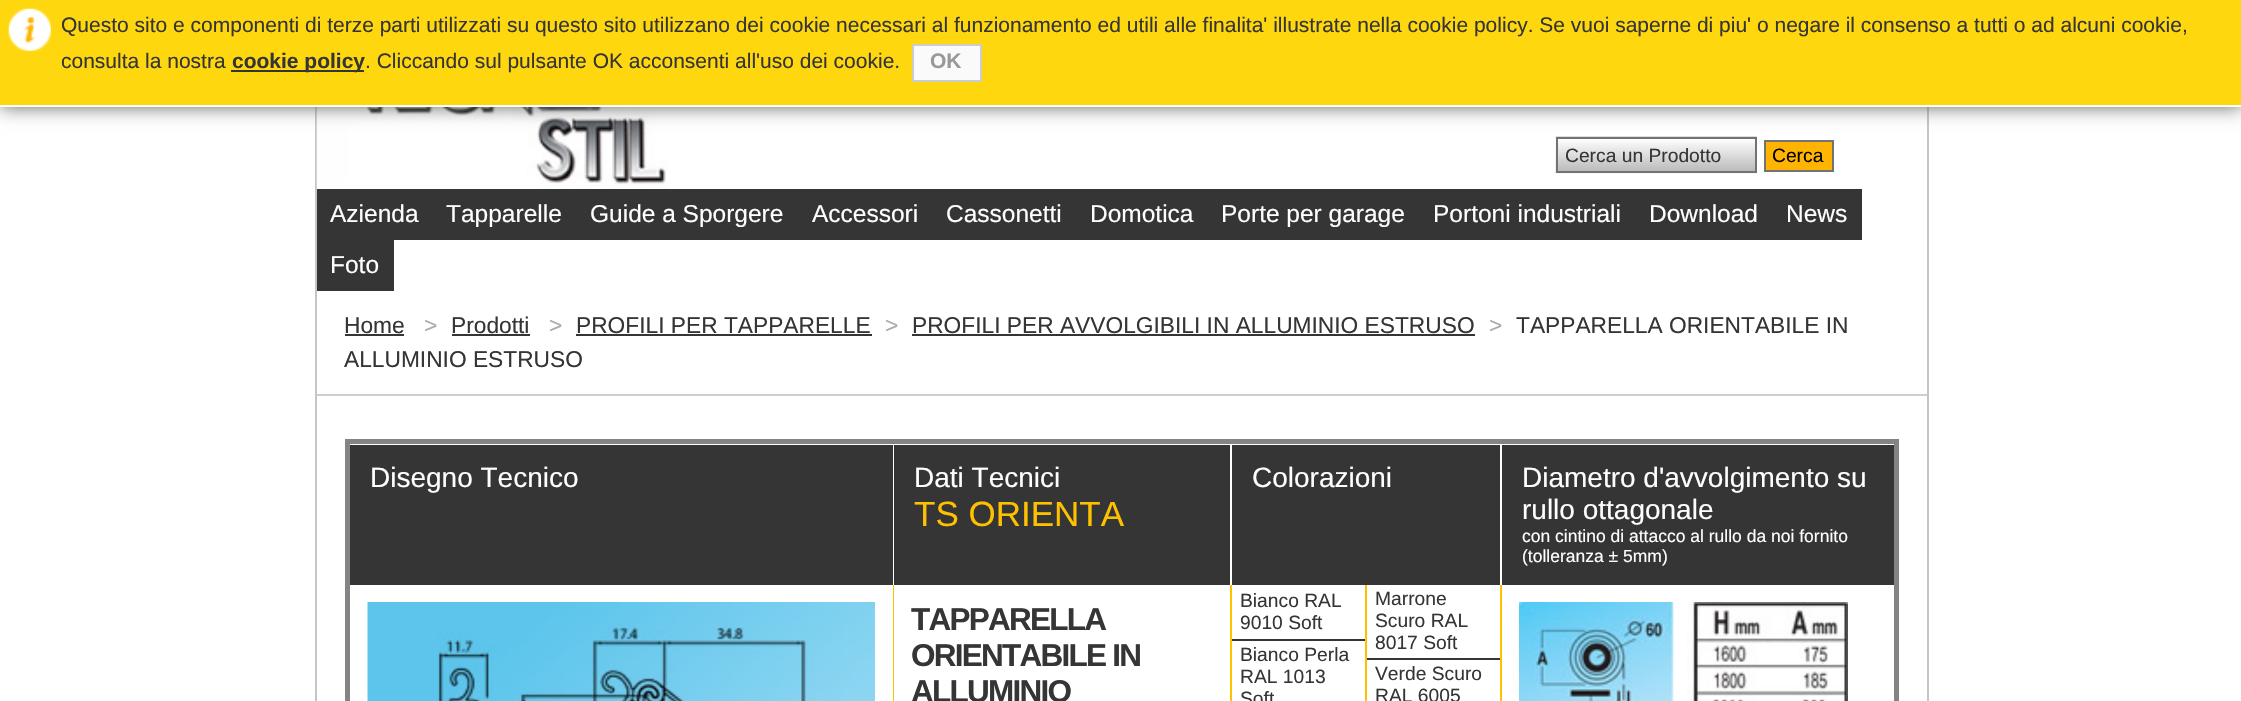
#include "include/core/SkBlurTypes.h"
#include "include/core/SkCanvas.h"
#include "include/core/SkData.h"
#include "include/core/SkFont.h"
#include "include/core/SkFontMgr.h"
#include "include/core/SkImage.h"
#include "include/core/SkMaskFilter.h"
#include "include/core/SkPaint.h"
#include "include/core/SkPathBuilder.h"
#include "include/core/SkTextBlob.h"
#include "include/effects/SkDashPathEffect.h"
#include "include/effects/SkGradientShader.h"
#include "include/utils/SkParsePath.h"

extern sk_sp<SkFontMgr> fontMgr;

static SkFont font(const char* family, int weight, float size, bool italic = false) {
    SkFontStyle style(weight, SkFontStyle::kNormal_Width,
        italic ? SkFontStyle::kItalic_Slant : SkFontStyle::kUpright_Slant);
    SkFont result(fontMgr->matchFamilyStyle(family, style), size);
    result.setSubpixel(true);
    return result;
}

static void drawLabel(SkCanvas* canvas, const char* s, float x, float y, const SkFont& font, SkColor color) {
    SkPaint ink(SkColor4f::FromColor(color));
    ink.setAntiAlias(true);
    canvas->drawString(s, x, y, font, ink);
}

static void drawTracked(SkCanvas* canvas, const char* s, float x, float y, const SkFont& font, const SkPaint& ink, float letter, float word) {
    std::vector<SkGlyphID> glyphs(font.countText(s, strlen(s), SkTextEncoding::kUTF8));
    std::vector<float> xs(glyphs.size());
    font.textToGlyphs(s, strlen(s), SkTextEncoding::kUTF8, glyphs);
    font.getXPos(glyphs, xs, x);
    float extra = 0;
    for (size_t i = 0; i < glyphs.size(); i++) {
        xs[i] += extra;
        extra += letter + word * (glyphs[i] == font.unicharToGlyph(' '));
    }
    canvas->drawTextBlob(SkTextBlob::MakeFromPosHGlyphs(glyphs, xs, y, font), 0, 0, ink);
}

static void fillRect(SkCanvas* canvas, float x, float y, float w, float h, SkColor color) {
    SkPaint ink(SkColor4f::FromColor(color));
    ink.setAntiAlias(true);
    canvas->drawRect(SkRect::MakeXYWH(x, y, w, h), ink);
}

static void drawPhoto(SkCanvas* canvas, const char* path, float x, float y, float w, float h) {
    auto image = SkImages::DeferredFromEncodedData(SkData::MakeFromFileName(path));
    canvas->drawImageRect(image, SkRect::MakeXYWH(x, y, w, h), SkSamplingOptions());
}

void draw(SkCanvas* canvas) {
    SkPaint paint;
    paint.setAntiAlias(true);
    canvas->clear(0xFFFFFFFF);
    paint.setStroke(true);
    paint.setStrokeWidth(2);
    paint.setColor(0xFFC5C5C5);
    canvas->drawRect(SkRect::MakeXYWH(316, 1, 1612, 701), paint);
    drawPhoto(canvas, "assets/img2.png", 316, 107, 351, 82);
    paint.setStroke(false);
    paint.setColor(0xFF656565);
    paint.setMaskFilter(SkMaskFilter::MakeBlur(kNormal_SkBlurStyle, 9));
    canvas->drawRect(SkRect::MakeXYWH(0, 0, 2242, 107), paint);
    paint.setMaskFilter(nullptr);
    fillRect(canvas, 0, 0, 2241, 105, 0xFFFFD70F);
    drawPhoto(canvas, "assets/img1.png", 8, 8, 43, 43);
    fillRect(canvas, 0, 105, 2241, 2, 0xFFFFFFFF);
    SkFont font1 = font("Liberation Sans", 400, 21);
    drawLabel(canvas, "Questo sito e componenti di terze parti utilizzati su questo sito utilizzano dei cookie necessari al funzionamento ed utili alle finalita' illustrate nella cookie policy. Se vuoi saperne di piu' o negare il consenso a tutti o ad alcuni cookie,", 61, 32, font1, 0xFF353535);
    drawLabel(canvas, "consulta la nostra", 61, 68, font1, 0xFF353535);
    fillRect(canvas, 231, 70, 133, 2, 0xFF353535);
    SkFont font2 = font("Liberation Sans", 700, 21);
    drawLabel(canvas, "cookie policy", 232, 68, font2, 0xFF353535);
    drawLabel(canvas, ". Cliccando sul pulsante OK acconsenti all'uso dei cookie.", 365, 68, font1, 0xFF353535);
    paint.setColor(0xFFFAFAFA);
    canvas->drawRect(SkRect::MakeXYWH(913, 45, 68, 36), paint);
    paint.setStroke(true);
    paint.setColor(0xFFCCCCCC);
    canvas->drawRect(SkRect::MakeXYWH(913, 45, 68, 36), paint);
    drawLabel(canvas, "OK", 930, 68, font2, 0xFF999999);
    drawPhoto(canvas, "assets/img3.png", 1555, 136, 202, 38);
    paint.setColor(0xFF727272);
    canvas->drawRect(SkRect::MakeXYWH(1557, 138, 199, 34), paint);
    SkFont font3 = font("Liberation Sans", 400, 19.25f);
    drawLabel(canvas, "Cerca un Prodotto", 1565, 162, font3, 0xFF353535);
    paint.setStroke(false);
    paint.setColor(0xFFFEB400);
    canvas->drawRect(SkRect::MakeXYWH(1765, 141, 68, 30), paint);
    paint.setStroke(true);
    paint.setColor(0xFF727272);
    canvas->drawRect(SkRect::MakeXYWH(1765, 141, 68, 30), paint);
    drawLabel(canvas, "Cerca", 1772, 162, font3, 0xFF000000);
    fillRect(canvas, 317, 189, 1545, 51, 0xFF353535);
    SkFont font4 = font("Liberation Sans", 400, 24.5f);
    drawLabel(canvas, "Azienda", 330, 222, font4, 0xFFFFFFFF);
    drawLabel(canvas, "Tapparelle", 446, 222, font4, 0xFFFFFFFF);
    drawLabel(canvas, "Guide a Sporgere", 590, 222, font4, 0xFFFFFFFF);
    drawLabel(canvas, "Accessori", 812, 222, font4, 0xFFFFFFFF);
    drawLabel(canvas, "Cassonetti", 946, 222, font4, 0xFFFFFFFF);
    drawLabel(canvas, "Domotica", 1090, 222, font4, 0xFFFFFFFF);
    drawLabel(canvas, "Porte per garage", 1221, 222, font4, 0xFFFFFFFF);
    drawLabel(canvas, "Portoni industriali", 1433, 222, font4, 0xFFFFFFFF);
    drawLabel(canvas, "Download", 1649, 222, font4, 0xFFFFFFFF);
    drawLabel(canvas, "News", 1786, 222, font4, 0xFFFFFFFF);
    fillRect(canvas, 317, 240, 77, 51, 0xFF353535);
    drawLabel(canvas, "Foto", 330, 273, font4, 0xFFFFFFFF);
    fillRect(canvas, 317, 394, 1610, 2, 0xFFCECECE);
    SkFont font5 = font("Liberation Sans", 400, 22.75f);
    drawLabel(canvas, "Home", 344, 333, font5, 0xFF353535);
    fillRect(canvas, 345, 334, 59, 2, 0xFF353535);
    drawLabel(canvas, ">", 424, 333, font5, 0xFFAAAAAA);
    drawLabel(canvas, "Prodotti", 451, 333, font5, 0xFF353535);
    fillRect(canvas, 452, 334, 78, 2, 0xFF353535);
    drawLabel(canvas, ">", 549, 333, font5, 0xFFAAAAAA);
    drawLabel(canvas, "PROFILI PER TAPPARELLE", 576, 333, font5, 0xFF353535);
    fillRect(canvas, 576, 334, 296, 2, 0xFF353535);
    drawLabel(canvas, ">", 885, 333, font5, 0xFFAAAAAA);
    drawLabel(canvas, "PROFILI PER AVVOLGIBILI IN ALLUMINIO ESTRUSO", 912, 333, font5, 0xFF353535);
    fillRect(canvas, 912, 334, 563, 2, 0xFF353535);
    drawLabel(canvas, ">", 1489, 333, font5, 0xFFAAAAAA);
    drawLabel(canvas, "TAPPARELLA ORIENTABILE IN", 1516, 333, font5, 0xFF353535);
    drawLabel(canvas, "ALLUMINIO ESTRUSO", 344, 367, font5, 0xFF353535);
    paint.setStrokeWidth(5);
    paint.setColor(0xFF858383);
    canvas->drawRect(SkRect::MakeXYWH(347.5f, 441.5f, 1549, 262), paint);
    fillRect(canvas, 350, 445, 543, 140, 0xFF353535);
    SkFont font6 = font("Liberation Sans", 400, 28);
    drawLabel(canvas, "Disegno Tecnico", 370, 487, font6, 0xFFFFFFFF);
    fillRect(canvas, 894, 445, 336, 140, 0xFF353535);
    drawLabel(canvas, "Dati Tecnici", 914, 487, font6, 0xFFFFFFFF);
    SkFont font7 = font("Liberation Sans", 400, 35);
    drawLabel(canvas, "TS ORIENTA", 914, 526, font7, 0xFFFEC100);
    fillRect(canvas, 1232, 445, 268, 140, 0xFF353535);
    drawLabel(canvas, "Colorazioni", 1252, 487, font6, 0xFFFFFFFF);
    fillRect(canvas, 1502, 445, 392, 140, 0xFF353535);
    drawLabel(canvas, "Diametro d'avvolgimento su", 1522, 487, font6, 0xFFFFFFFF);
    drawLabel(canvas, "rullo ottagonale", 1522, 519, font6, 0xFFFFFFFF);
    SkFont font8 = font("Liberation Sans", 400, 17.5f);
    drawLabel(canvas, "con cintino di attacco al rullo da noi fornito", 1522, 542, font8, 0xFFFFFFFF);
    drawLabel(canvas, "(tolleranza ± 5mm)", 1522, 562, font8, 0xFFFFFFFF);
    drawPhoto(canvas, "assets/img4.png", 367, 602, 508, 99);
    fillRect(canvas, 893, 585, 1, 116, 0xFFFEC100);
    SkFont font9 = font("Liberation Sans", 700, 31.5f);
    paint.setStroke(false);
    paint.setColor(0xFF353535);
    drawTracked(canvas, "TAPPARELLA", 911, 630, font9, paint, -1.75f, 0);
    drawTracked(canvas, "ORIENTABILE IN", 911, 666, font9, paint, -1.75f, 0);
    drawTracked(canvas, "ALLUMINIO", 911, 702, font9, paint, -1.75f, 0);
    fillRect(canvas, 1230, 585, 2, 116, 0xFFFEC100);
    fillRect(canvas, 1232, 639, 133, 2, 0xFF353535);
    drawLabel(canvas, "Bianco RAL", 1240, 607, font3, 0xFF353535);
    drawLabel(canvas, "9010 Soft", 1240, 629, font3, 0xFF353535);
    drawLabel(canvas, "Bianco Perla", 1240, 661, font3, 0xFF353535);
    drawLabel(canvas, "RAL 1013", 1240, 683, font3, 0xFF353535);
    drawLabel(canvas, "Soft", 1240, 705, font3, 0xFF353535);
    fillRect(canvas, 1365, 585, 2, 116, 0xFFFEC100);
    fillRect(canvas, 1367, 658, 133, 2, 0xFF353535);
    drawLabel(canvas, "Marrone", 1375, 605, font3, 0xFF353535);
    drawLabel(canvas, "Scuro RAL", 1375, 627, font3, 0xFF353535);
    drawLabel(canvas, "8017 Soft", 1375, 649, font3, 0xFF353535);
    drawLabel(canvas, "Verde Scuro", 1375, 680, font3, 0xFF353535);
    drawLabel(canvas, "RAL 6005", 1375, 702, font3, 0xFF353535);
    fillRect(canvas, 1500, 585, 2, 116, 0xFFFEC100);
    drawPhoto(canvas, "assets/img5.png", 1519, 602, 329, 99);
}
